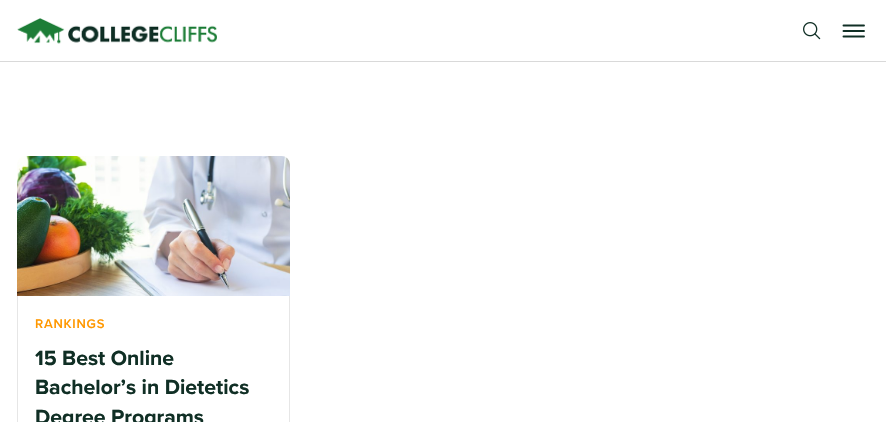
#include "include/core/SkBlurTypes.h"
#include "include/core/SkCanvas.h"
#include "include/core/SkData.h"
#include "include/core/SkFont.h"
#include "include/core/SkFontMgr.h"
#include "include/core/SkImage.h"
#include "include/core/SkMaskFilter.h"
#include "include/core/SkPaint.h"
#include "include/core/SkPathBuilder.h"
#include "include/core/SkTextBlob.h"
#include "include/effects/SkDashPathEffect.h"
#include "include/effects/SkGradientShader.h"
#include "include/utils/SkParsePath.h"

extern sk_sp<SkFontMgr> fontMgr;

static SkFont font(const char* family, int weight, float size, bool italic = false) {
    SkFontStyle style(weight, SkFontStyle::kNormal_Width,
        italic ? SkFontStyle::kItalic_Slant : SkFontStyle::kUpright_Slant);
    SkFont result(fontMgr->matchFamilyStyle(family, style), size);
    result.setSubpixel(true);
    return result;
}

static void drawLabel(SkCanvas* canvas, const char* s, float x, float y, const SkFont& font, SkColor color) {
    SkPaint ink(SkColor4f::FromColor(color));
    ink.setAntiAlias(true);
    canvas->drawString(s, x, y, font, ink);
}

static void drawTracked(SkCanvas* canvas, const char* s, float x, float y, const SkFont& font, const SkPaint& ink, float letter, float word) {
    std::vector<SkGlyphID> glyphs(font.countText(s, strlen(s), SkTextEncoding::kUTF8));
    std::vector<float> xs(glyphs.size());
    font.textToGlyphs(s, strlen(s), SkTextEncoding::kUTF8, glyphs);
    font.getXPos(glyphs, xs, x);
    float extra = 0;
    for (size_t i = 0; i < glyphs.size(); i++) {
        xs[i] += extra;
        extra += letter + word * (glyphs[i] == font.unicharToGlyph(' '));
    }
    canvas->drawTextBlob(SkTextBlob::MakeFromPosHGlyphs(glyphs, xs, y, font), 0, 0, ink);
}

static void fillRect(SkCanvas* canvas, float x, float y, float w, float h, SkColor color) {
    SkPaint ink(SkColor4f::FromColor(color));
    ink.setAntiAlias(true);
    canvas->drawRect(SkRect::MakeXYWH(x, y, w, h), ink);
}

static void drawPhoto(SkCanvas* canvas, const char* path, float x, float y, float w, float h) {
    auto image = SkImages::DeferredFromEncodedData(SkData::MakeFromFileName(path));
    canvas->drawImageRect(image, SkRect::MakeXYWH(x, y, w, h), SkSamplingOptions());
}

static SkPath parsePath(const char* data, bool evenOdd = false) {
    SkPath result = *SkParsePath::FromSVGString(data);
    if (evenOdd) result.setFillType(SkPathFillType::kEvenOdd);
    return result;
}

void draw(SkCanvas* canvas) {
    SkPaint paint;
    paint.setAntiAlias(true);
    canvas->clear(0xFFFFFFFF);
    fillRect(canvas, 0, 61, 886, 1, 0xFFD9D9D9);
    drawPhoto(canvas, "assets/img1.png", 17, 18, 200, 26);
    drawPhoto(canvas, "assets/img2.png", 803, 22, 18, 18);
    paint.setStroke(true);
    paint.setStrokeWidth(1.9f);
    paint.setStrokeCap(SkPaint::kRound_Cap);
    paint.setColor(0xFF102F25);
    canvas->drawPath(parsePath("M843.5 25.5H864M843.5 31H864M843.5 36.5H864"), paint);
    drawPhoto(canvas, "assets/img3.png", 17, 156, 273, 140);
    paint.setStroke(false);
    paint.setColor(0xFFE6E6E6);
    canvas->drawPath(parsePath("M17 296H290V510C290 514 286 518 282 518H26C21 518 17 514 17 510ZM18 296H289V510C289 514 286 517 282 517H26C21 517 18 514 18 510Z", true), paint);
    SkFont font1 = font("Proxima Nova", 600, 13);
    paint.setColor(0xFFFF9800);
    drawTracked(canvas, "RANKINGS", 35, 328, font1, paint, 0.75f, 0);
    SkFont font2 = font("Proxima Nova", 700, 21.25f);
    drawLabel(canvas, "15 Best Online", 35, 365, font2, 0xFF102F25);
    drawLabel(canvas, "Bachelor’s in Dietetics", 35, 394, font2, 0xFF102F25);
    drawLabel(canvas, "Degree Programs", 35, 424, font2, 0xFF102F25);
}
